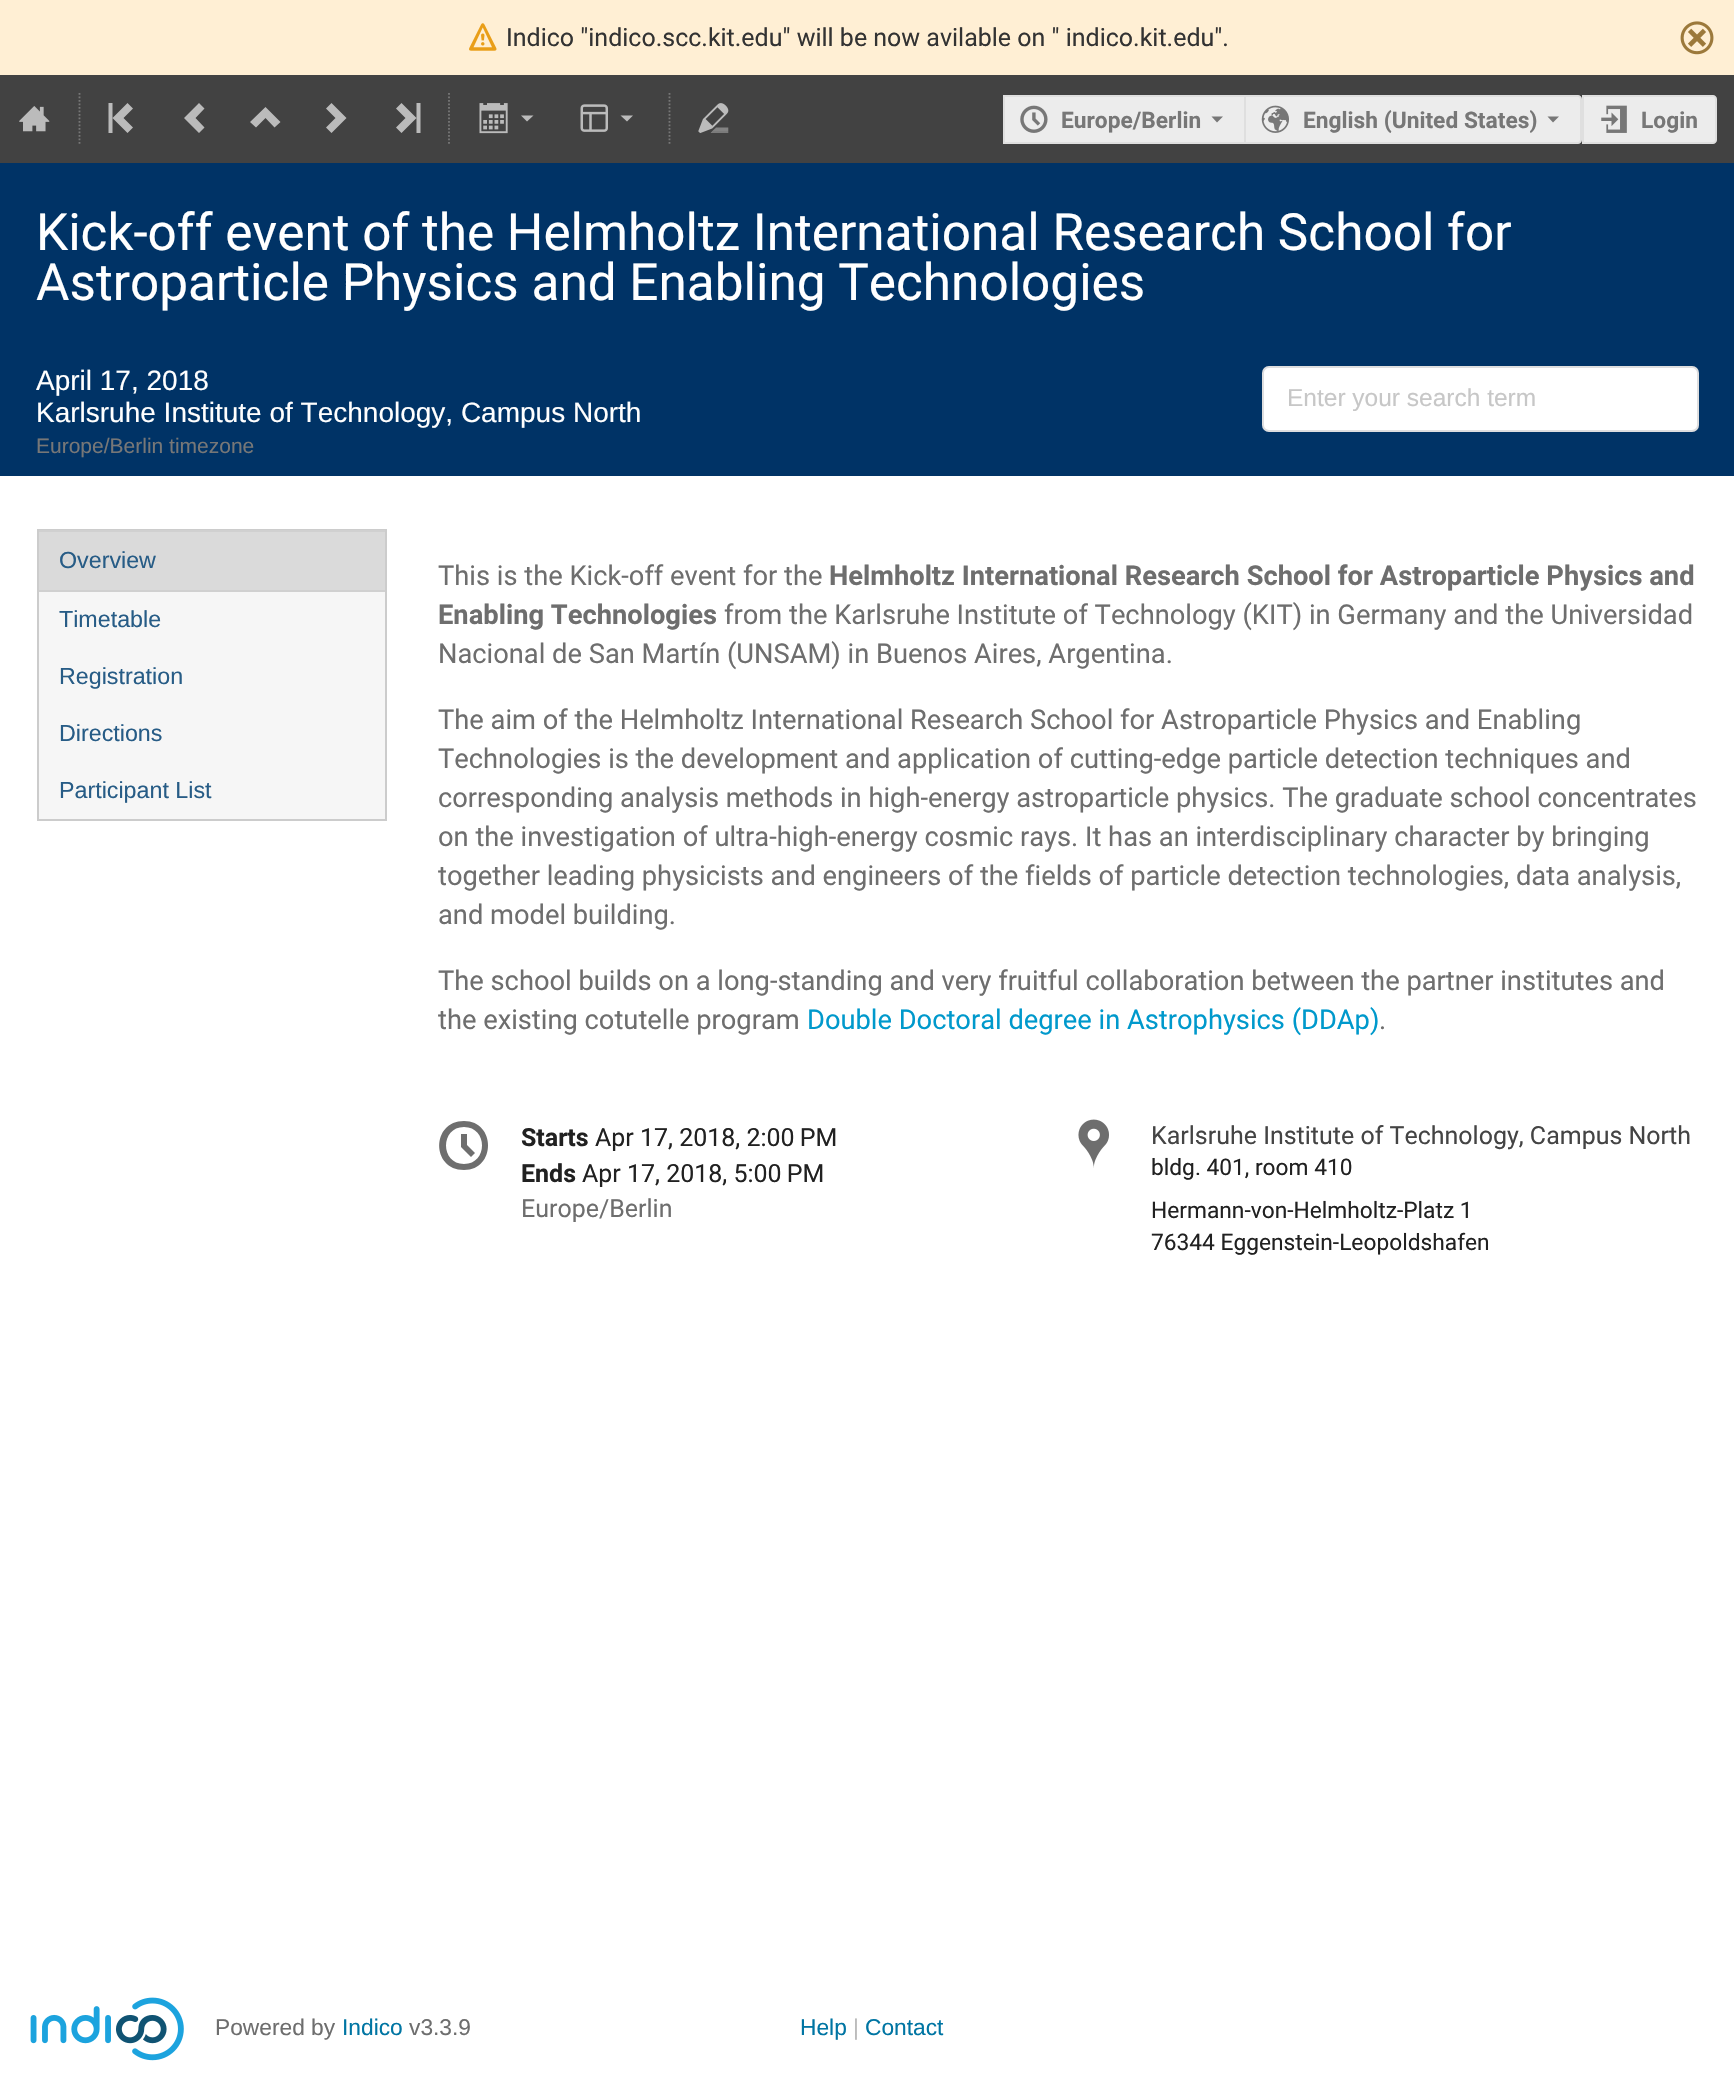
#include "include/core/SkBlurTypes.h"
#include "include/core/SkCanvas.h"
#include "include/core/SkData.h"
#include "include/core/SkFont.h"
#include "include/core/SkFontMgr.h"
#include "include/core/SkImage.h"
#include "include/core/SkMaskFilter.h"
#include "include/core/SkPaint.h"
#include "include/core/SkPathBuilder.h"
#include "include/core/SkTextBlob.h"
#include "include/effects/SkDashPathEffect.h"
#include "include/effects/SkGradientShader.h"
#include "include/utils/SkParsePath.h"

extern sk_sp<SkFontMgr> fontMgr;

static SkFont font(const char* family, int weight, float size, bool italic = false) {
    SkFontStyle style(weight, SkFontStyle::kNormal_Width,
        italic ? SkFontStyle::kItalic_Slant : SkFontStyle::kUpright_Slant);
    SkFont result(fontMgr->matchFamilyStyle(family, style), size);
    result.setSubpixel(true);
    return result;
}

static void drawLabel(SkCanvas* canvas, const char* s, float x, float y, const SkFont& font, SkColor color) {
    SkPaint ink(SkColor4f::FromColor(color));
    ink.setAntiAlias(true);
    canvas->drawString(s, x, y, font, ink);
}

static void fillRect(SkCanvas* canvas, float x, float y, float w, float h, SkColor color) {
    SkPaint ink(SkColor4f::FromColor(color));
    ink.setAntiAlias(true);
    canvas->drawRect(SkRect::MakeXYWH(x, y, w, h), ink);
}

static void fillRRect(SkCanvas* canvas, float x, float y, float w, float h, float radius, SkColor color) {
    SkPaint ink(SkColor4f::FromColor(color));
    ink.setAntiAlias(true);
    canvas->drawRoundRect(SkRect::MakeXYWH(x, y, w, h), radius, radius, ink);
}

static void drawPhoto(SkCanvas* canvas, const char* path, float x, float y, float w, float h) {
    auto image = SkImages::DeferredFromEncodedData(SkData::MakeFromFileName(path));
    canvas->drawImageRect(image, SkRect::MakeXYWH(x, y, w, h), SkSamplingOptions());
}

static SkPath parsePath(const char* data, bool evenOdd = false) {
    SkPath result = *SkParsePath::FromSVGString(data);
    if (evenOdd) result.setFillType(SkPathFillType::kEvenOdd);
    return result;
}

void draw(SkCanvas* canvas) {
    SkPaint paint;
    paint.setAntiAlias(true);
    canvas->clear(0xFFFFFFFF);
    fillRect(canvas, 0, 0, 1734, 75, 0xFFFFEFD4);
    drawPhoto(canvas, "assets/img1.png", 469, 23, 28, 28);
    SkFont font1 = font("Roboto", 400, 25);
    drawLabel(canvas, "Indico \"indico.scc.kit.edu\" will be now avilable on \" indico.kit.edu\".", 506, 46, font1, 0xFF333333);
    drawPhoto(canvas, "assets/img2.png", 1680, 21, 34, 34);
    fillRect(canvas, 0, 75, 1734, 88, 0xFF424242);
    drawPhoto(canvas, "assets/img3.png", 19, 106, 31, 26);
    paint.setStroke(true);
    paint.setStrokeWidth(1.8f);
    paint.setColor(0xFF777777);
    paint.setPathEffect(SkDashPathEffect::Make({{1.75f, 1.75f}}, 0));
    canvas->drawPath(parsePath("M79.5 93V145"), paint);
    paint.setPathEffect(nullptr);
    paint.setStroke(false);
    paint.setColor(0xFFBBBBBB);
    canvas->drawPath(parsePath("M133 108.5L127.5 103L112.5 118L127.5 133L133 127.5L123.5 118ZM108.5 103V133H112.5V103Z"), paint);
    canvas->drawPath(parsePath("M199 133L204.5 127.5L195.5 118L204.5 108.5L199 103L184 118Z"), paint);
    canvas->drawPath(parsePath("M250 122L256 127.5L265.5 118L274.5 127.5L280.5 122L265.5 107Z"), paint);
    canvas->drawPath(parsePath("M331.5 103L326 108.5L335.5 118L326 127.5L331.5 133L346.5 118Z"), paint);
    canvas->drawPath(parsePath("M396 127.5L401.5 133L416.5 118L401.5 103L396 108.5L405.5 118ZM420.5 133V103H416.5V133Z"), paint);
    paint.setStroke(true);
    paint.setColor(0xFF777777);
    paint.setPathEffect(SkDashPathEffect::Make({{1.75f, 1.75f}}, 0));
    canvas->drawPath(parsePath("M449 93V145"), paint);
    paint.setPathEffect(nullptr);
    drawPhoto(canvas, "assets/img4.png", 479, 103, 29, 31);
    paint.setStroke(false);
    paint.setColor(0xFFBBBBBB);
    canvas->drawPath(parsePath("M521 115.5L527 121.5L533.5 115.5Z"), paint);
    drawPhoto(canvas, "assets/img5.png", 580, 104, 28, 28);
    canvas->drawPath(parsePath("M620.5 115.5L627 121.5L633 115.5Z"), paint);
    paint.setStroke(true);
    paint.setColor(0xFF777777);
    paint.setPathEffect(SkDashPathEffect::Make({{1.75f, 1.75f}}, 0));
    canvas->drawPath(parsePath("M669.5 93V145"), paint);
    paint.setPathEffect(nullptr);
    drawPhoto(canvas, "assets/img6.png", 698, 103, 31, 30);
    fillRect(canvas, 1005, 97, 239, 45, 0xFFECECEC);
    fillRect(canvas, 1003, 95, 241, 2, 0xFFDFDFDF);
    fillRect(canvas, 1003, 142, 241, 2, 0xFFDFDFDF);
    fillRect(canvas, 1003, 95, 2, 49, 0xFFDFDFDF);
    drawPhoto(canvas, "assets/img7.png", 1020, 105, 28, 28);
    SkFont font2 = font("Roboto", 700, 22.75f);
    drawLabel(canvas, "Europe/Berlin", 1061, 128, font2, 0xFF777777);
    paint.setStroke(false);
    canvas->drawPath(parsePath("M1211.5 116.5L1217 122.5L1223 116.5Z"), paint);
    paint.setColor(0xFFECECEC);
    canvas->drawPath(parsePath("M1245 96H1578C1579.5 96 1581 97.5 1581 99V140C1581 141.5 1579.5 143 1578 143H1245Z"), paint);
    paint.setStroke(true);
    paint.setStrokeWidth(2);
    paint.setColor(0xFFDFDFDF);
    canvas->drawPath(parsePath("M1245 96H1578C1579.5 96 1581 97.5 1581 99V140C1581 141.5 1579.5 143 1578 143H1245Z"), paint);
    drawPhoto(canvas, "assets/img8.png", 1261, 105, 28, 28);
    drawLabel(canvas, "English (United States)", 1303, 128, font2, 0xFF777777);
    paint.setStroke(false);
    paint.setColor(0xFF777777);
    canvas->drawPath(parsePath("M1547.5 116.5L1553 122.5L1559 116.5Z"), paint);
    paint.setColor(0xFFECECEC);
    canvas->drawPath(parsePath("M1583 96H1713C1714.5 96 1716 97.5 1716 99V140C1716 141.5 1714.5 143 1713 143H1583Z"), paint);
    paint.setStroke(true);
    paint.setColor(0xFFDFDFDF);
    canvas->drawPath(parsePath("M1583 96H1713C1714.5 96 1716 97.5 1716 99V140C1716 141.5 1714.5 143 1713 143H1583Z"), paint);
    drawPhoto(canvas, "assets/img9.png", 1601, 105, 26, 28);
    drawLabel(canvas, "Login", 1641, 128, font2, 0xFF777777);
    fillRect(canvas, 0, 163, 1734, 313, 0xFF003366);
    SkFont font3 = font("Roboto", 400, 51.3f);
    drawLabel(canvas, "Kick-off event of the Helmholtz International Research School for", 36, 250, font3, 0xFFFFFFFF);
    drawLabel(canvas, "Astroparticle Physics and Enabling Technologies", 36, 300, font3, 0xFFFFFFFF);
    SkFont font4 = font("Liberation Sans", 400, 28);
    drawLabel(canvas, "April 17, 2018", 36, 390, font4, 0xFFFFFFFF);
    drawLabel(canvas, "Karlsruhe Institute of Technology, Campus North", 36, 422, font4, 0xFFFFFFFF);
    SkFont font5 = font("Liberation Sans", 400, 21);
    drawLabel(canvas, "Europe/Berlin timezone", 36, 453, font5, 0xFF777777);
    fillRRect(canvas, 1262, 366, 437, 66, 7, 0xFFFFFFFF);
    paint.setColor(0x26222426);
    canvas->drawRoundRect(SkRect::MakeXYWH(1263, 367, 435, 64), 6, 6, paint);
    SkFont font6 = font("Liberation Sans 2", 400, 24.5f);
    drawLabel(canvas, "Enter your search term", 1287, 406, font6, 0xFFC7C7C7);
    fillRect(canvas, 39, 592, 346, 227, 0xFFF6F6F6);
    paint.setColor(0xFFCCCCCC);
    canvas->drawRect(SkRect::MakeXYWH(38, 530, 348, 290), paint);
    fillRect(canvas, 39, 532, 346, 58, 0xFFDADADA);
    fillRect(canvas, 39, 530, 346, 2, 0xFFD0D0D0);
    fillRect(canvas, 39, 590, 346, 2, 0xFFD0D0D0);
    SkFont font7 = font("Liberation Sans 2", 400, 23.25f);
    drawLabel(canvas, "Overview", 59, 568, font7, 0xFF275C86);
    drawLabel(canvas, "Timetable", 59, 627, font7, 0xFF275C86);
    drawLabel(canvas, "Registration", 59, 684, font7, 0xFF275C86);
    drawLabel(canvas, "Directions", 59, 741, font7, 0xFF275C86);
    drawLabel(canvas, "Participant List", 59, 798, font7, 0xFF275C86);
    SkFont font8 = font("Roboto", 400, 27.3f);
    drawLabel(canvas, "This is the Kick-off event for the", 438, 585, font8, 0xFF6E6E6E);
    SkFont font9 = font("Roboto", 700, 27.3f);
    drawLabel(canvas, "Helmholtz International Research School for Astroparticle Physics and", 829, 585, font9, 0xFF6E6E6E);
    drawLabel(canvas, "Enabling Technologies", 438, 624, font9, 0xFF6E6E6E);
    drawLabel(canvas, "from the Karlsruhe Institute of Technology (KIT) in Germany and the Universidad", 724, 624, font8, 0xFF6E6E6E);
    drawLabel(canvas, "Nacional de San Martín (UNSAM) in Buenos Aires, Argentina.", 438, 663, font8, 0xFF6E6E6E);
    drawLabel(canvas, "The aim of the Helmholtz International Research School for Astroparticle Physics and Enabling", 438, 729, font8, 0xFF6E6E6E);
    drawLabel(canvas, "Technologies is the development and application of cutting-edge particle detection techniques and", 438, 768, font8, 0xFF6E6E6E);
    drawLabel(canvas, "corresponding analysis methods in high-energy astroparticle physics. The graduate school concentrates", 438, 807, font8, 0xFF6E6E6E);
    drawLabel(canvas, "on the investigation of ultra-high-energy cosmic rays. It has an interdisciplinary character by bringing", 438, 846, font8, 0xFF6E6E6E);
    drawLabel(canvas, "together leading physicists and engineers of the fields of particle detection technologies, data analysis,", 438, 885, font8, 0xFF6E6E6E);
    drawLabel(canvas, "and model building.", 438, 924, font8, 0xFF6E6E6E);
    drawLabel(canvas, "The school builds on a long-standing and very fruitful collaboration between the partner institutes and", 438, 990, font8, 0xFF6E6E6E);
    drawLabel(canvas, "the existing cotutelle program", 438, 1029, font8, 0xFF6E6E6E);
    drawLabel(canvas, "Double Doctoral degree in Astrophysics (DDAp)", 807, 1029, font8, 0xFF0099CC);
    drawLabel(canvas, ".", 1379, 1029, font8, 0xFF6E6E6E);
    paint.setStroke(false);
    paint.setColor(0xFF6E6E6E);
    canvas->drawPath(parsePath("M471 1157L461 1147V1134H467V1145L475 1153ZM464 1121C431 1121 431 1170 464 1170C496 1170 496 1121 464 1121ZM464 1164C440 1164 440 1127 464 1127C488 1127 488 1164 464 1164Z"), paint);
    SkFont font10 = font("Roboto", 700, 25);
    drawLabel(canvas, "Starts", 521, 1146, font10, 0xFF212121);
    drawLabel(canvas, "Apr 17, 2018, 2:00 PM", 595, 1146, font1, 0xFF212121);
    drawLabel(canvas, "Ends", 521, 1182, font10, 0xFF212121);
    drawLabel(canvas, "Apr 17, 2018, 5:00 PM", 582, 1182, font1, 0xFF212121);
    drawLabel(canvas, "Europe/Berlin", 521, 1217, font1, 0xFF6E6E6E);
    drawPhoto(canvas, "assets/img10.png", 1078, 1119, 31, 49);
    drawLabel(canvas, "Karlsruhe Institute of Technology, Campus North", 1151, 1144, font1, 0xFF444444);
    SkFont font11 = font("Roboto", 400, 22.75f);
    drawLabel(canvas, "bldg. 401, room 410", 1151, 1175, font11, 0xFF212121);
    drawLabel(canvas, "Hermann-von-Helmholtz-Platz 1", 1151, 1218, font11, 0xFF212121);
    drawLabel(canvas, "76344 Eggenstein-Leopoldshafen", 1151, 1250, font11, 0xFF212121);
    drawPhoto(canvas, "assets/img11.png", 30, 1997, 154, 64);
    SkFont font12 = font("Liberation Sans", 400, 22.75f);
    drawLabel(canvas, "Powered by", 215, 2035, font12, 0xFF6E6E6E);
    drawLabel(canvas, "Indico", 342, 2035, font12, 0xFF0075A3);
    drawLabel(canvas, "v3.3.9", 409, 2035, font12, 0xFF6E6E6E);
    drawLabel(canvas, "Help", 800, 2035, font12, 0xFF0075A3);
    drawLabel(canvas, "|", 853, 2035, font12, 0xFFBBBBBB);
    drawLabel(canvas, "Contact", 865, 2035, font12, 0xFF0075A3);
}
